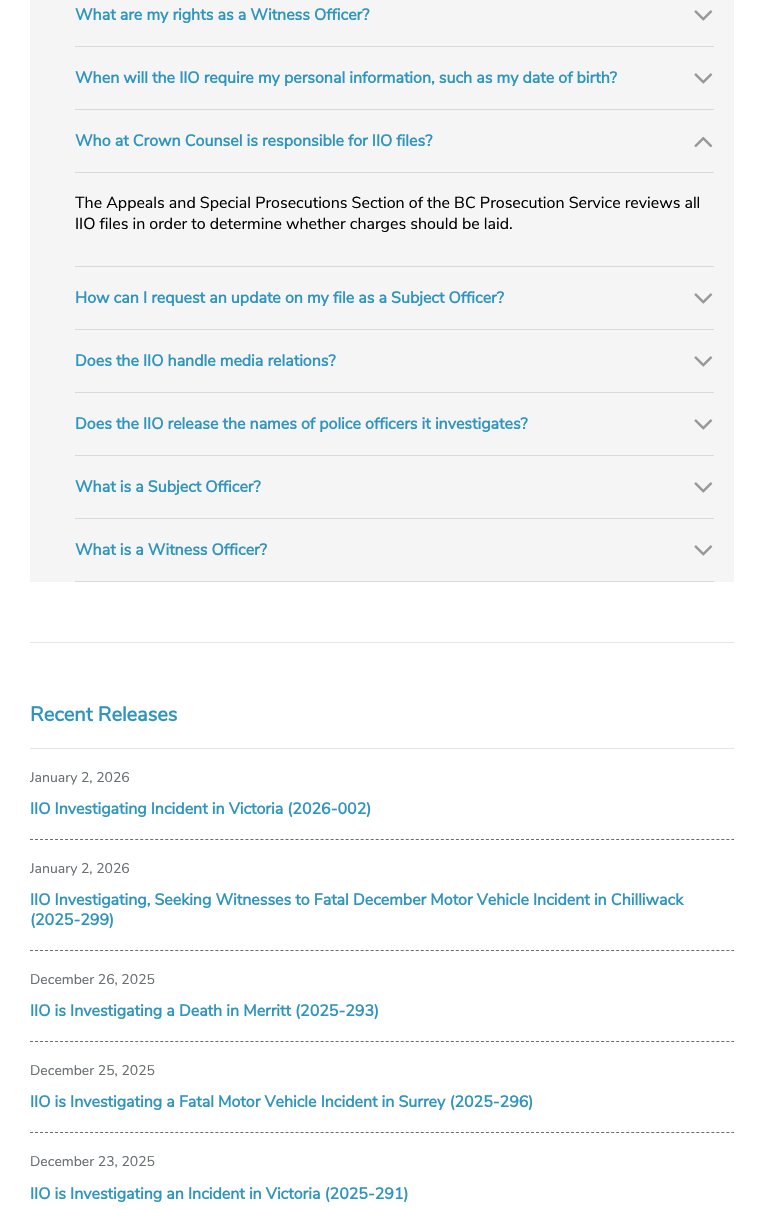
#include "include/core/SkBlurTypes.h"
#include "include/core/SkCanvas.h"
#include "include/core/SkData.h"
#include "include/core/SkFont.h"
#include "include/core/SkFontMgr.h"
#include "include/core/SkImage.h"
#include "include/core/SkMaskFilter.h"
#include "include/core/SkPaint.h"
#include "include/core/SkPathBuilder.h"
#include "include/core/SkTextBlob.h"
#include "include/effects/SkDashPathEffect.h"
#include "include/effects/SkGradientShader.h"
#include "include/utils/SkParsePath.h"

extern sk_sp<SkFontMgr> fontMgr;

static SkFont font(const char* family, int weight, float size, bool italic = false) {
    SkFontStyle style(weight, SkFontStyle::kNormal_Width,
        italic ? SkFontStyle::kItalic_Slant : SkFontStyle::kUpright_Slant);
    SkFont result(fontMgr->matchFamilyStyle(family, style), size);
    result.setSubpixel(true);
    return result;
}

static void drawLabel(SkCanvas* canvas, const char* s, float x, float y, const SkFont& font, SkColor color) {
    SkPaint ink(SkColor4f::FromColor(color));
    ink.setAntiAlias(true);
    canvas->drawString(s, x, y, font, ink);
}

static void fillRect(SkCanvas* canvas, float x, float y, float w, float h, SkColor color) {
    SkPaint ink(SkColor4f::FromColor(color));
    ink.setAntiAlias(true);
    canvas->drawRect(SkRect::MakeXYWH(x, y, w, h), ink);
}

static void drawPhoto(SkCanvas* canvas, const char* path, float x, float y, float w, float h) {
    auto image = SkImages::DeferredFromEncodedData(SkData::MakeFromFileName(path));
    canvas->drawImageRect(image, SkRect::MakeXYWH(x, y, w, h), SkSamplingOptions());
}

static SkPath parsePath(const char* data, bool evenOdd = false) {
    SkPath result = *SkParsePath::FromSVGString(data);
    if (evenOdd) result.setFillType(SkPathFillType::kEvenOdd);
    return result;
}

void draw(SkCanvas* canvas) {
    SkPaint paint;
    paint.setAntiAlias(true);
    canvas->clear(0xFFFFFFFF);
    fillRect(canvas, 30, 0, 704, 582, 0xFFF5F5F5);
    fillRect(canvas, 75, 46, 639, 1, 0xFFD6DADC);
    SkFont font1 = font("Nunito Sans", 700, 16);
    drawLabel(canvas, "What are my rights as a Witness Officer?", 75, 20, font1, 0xFF2F95BE);
    drawPhoto(canvas, "assets/img1.png", 694, 10, 19, 11);
    fillRect(canvas, 75, 109, 639, 1, 0xFFD6DADC);
    drawLabel(canvas, "When will the IIO require my personal information, such as my date of birth?", 75, 83, font1, 0xFF2F95BE);
    drawPhoto(canvas, "assets/img1.png", 694, 73, 19, 11);
    fillRect(canvas, 75, 172, 639, 1, 0xFFD6DADC);
    drawLabel(canvas, "Who at Crown Counsel is responsible for IIO files?", 75, 146, font1, 0xFF2F95BE);
    drawPhoto(canvas, "assets/img2.png", 694, 136, 19, 12);
    fillRect(canvas, 75, 266, 639, 1, 0xFFD6DADC);
    SkFont font2 = font("Nunito Sans", 400, 16);
    drawLabel(canvas, "The Appeals and Special Prosecutions Section of the BC Prosecution Service reviews all", 75, 208, font2, 0xFF000000);
    drawLabel(canvas, "IIO files in order to determine whether charges should be laid.", 75, 229, font2, 0xFF000000);
    fillRect(canvas, 75, 329, 639, 1, 0xFFD6DADC);
    drawLabel(canvas, "How can I request an update on my file as a Subject Officer?", 75, 303, font1, 0xFF2F95BE);
    drawPhoto(canvas, "assets/img1.png", 694, 293, 19, 11);
    fillRect(canvas, 75, 392, 639, 1, 0xFFD6DADC);
    drawLabel(canvas, "Does the IIO handle media relations?", 75, 366, font1, 0xFF2F95BE);
    drawPhoto(canvas, "assets/img1.png", 694, 356, 19, 11);
    fillRect(canvas, 75, 455, 639, 1, 0xFFD6DADC);
    drawLabel(canvas, "Does the IIO release the names of police officers it investigates?", 75, 429, font1, 0xFF2F95BE);
    drawPhoto(canvas, "assets/img1.png", 694, 419, 19, 11);
    fillRect(canvas, 75, 518, 639, 1, 0xFFD6DADC);
    drawLabel(canvas, "What is a Subject Officer?", 75, 492, font1, 0xFF2F95BE);
    drawPhoto(canvas, "assets/img1.png", 694, 482, 19, 11);
    fillRect(canvas, 75, 581, 639, 1, 0xFFD6DADC);
    drawLabel(canvas, "What is a Witness Officer?", 75, 555, font1, 0xFF2F95BE);
    drawPhoto(canvas, "assets/img1.png", 694, 545, 19, 11);
    fillRect(canvas, 30, 642, 704, 1, 0xFFE1E7EC);
    SkFont font3 = font("Nunito Sans", 700, 20);
    drawLabel(canvas, "Recent Releases", 30, 721, font3, 0xFF2F95BE);
    fillRect(canvas, 30, 748, 704, 1, 0xFFE1E7EC);
    paint.setStroke(true);
    paint.setStrokeWidth(1);
    paint.setColor(0xFF676D70);
    paint.setPathEffect(SkDashPathEffect::Make({{3, 2.01f}}, 0));
    canvas->drawPath(parsePath("M30 839.5H734"), paint);
    paint.setPathEffect(nullptr);
    SkFont font4 = font("Nunito Sans", 400, 14);
    drawLabel(canvas, "January 2, 2026", 30, 782, font4, 0xFF676D70);
    drawLabel(canvas, "IIO Investigating Incident in Victoria (2026-002)", 30, 814, font1, 0xFF2F95BE);
    paint.setPathEffect(SkDashPathEffect::Make({{3, 2.01f}}, 0));
    canvas->drawPath(parsePath("M30 950.5H734"), paint);
    paint.setPathEffect(nullptr);
    drawLabel(canvas, "January 2, 2026", 30, 873, font4, 0xFF676D70);
    drawLabel(canvas, "IIO Investigating, Seeking Witnesses to Fatal December Motor Vehicle Incident in Chilliwack", 30, 905, font1, 0xFF2F95BE);
    drawLabel(canvas, "(2025-299)", 30, 925, font1, 0xFF2F95BE);
    paint.setPathEffect(SkDashPathEffect::Make({{3, 2.01f}}, 0));
    canvas->drawPath(parsePath("M30 1041.5H734"), paint);
    paint.setPathEffect(nullptr);
    drawLabel(canvas, "December 26, 2025", 30, 984, font4, 0xFF676D70);
    drawLabel(canvas, "IIO is Investigating a Death in Merritt (2025-293)", 30, 1016, font1, 0xFF2F95BE);
    paint.setPathEffect(SkDashPathEffect::Make({{3, 2.01f}}, 0));
    canvas->drawPath(parsePath("M30 1132.5H734"), paint);
    paint.setPathEffect(nullptr);
    drawLabel(canvas, "December 25, 2025", 30, 1075, font4, 0xFF676D70);
    drawLabel(canvas, "IIO is Investigating a Fatal Motor Vehicle Incident in Surrey (2025-296)", 30, 1107, font1, 0xFF2F95BE);
    drawLabel(canvas, "December 23, 2025", 30, 1166, font4, 0xFF676D70);
    drawLabel(canvas, "IIO is Investigating an Incident in Victoria (2025-291)", 30, 1199, font1, 0xFF2F95BE);
}
